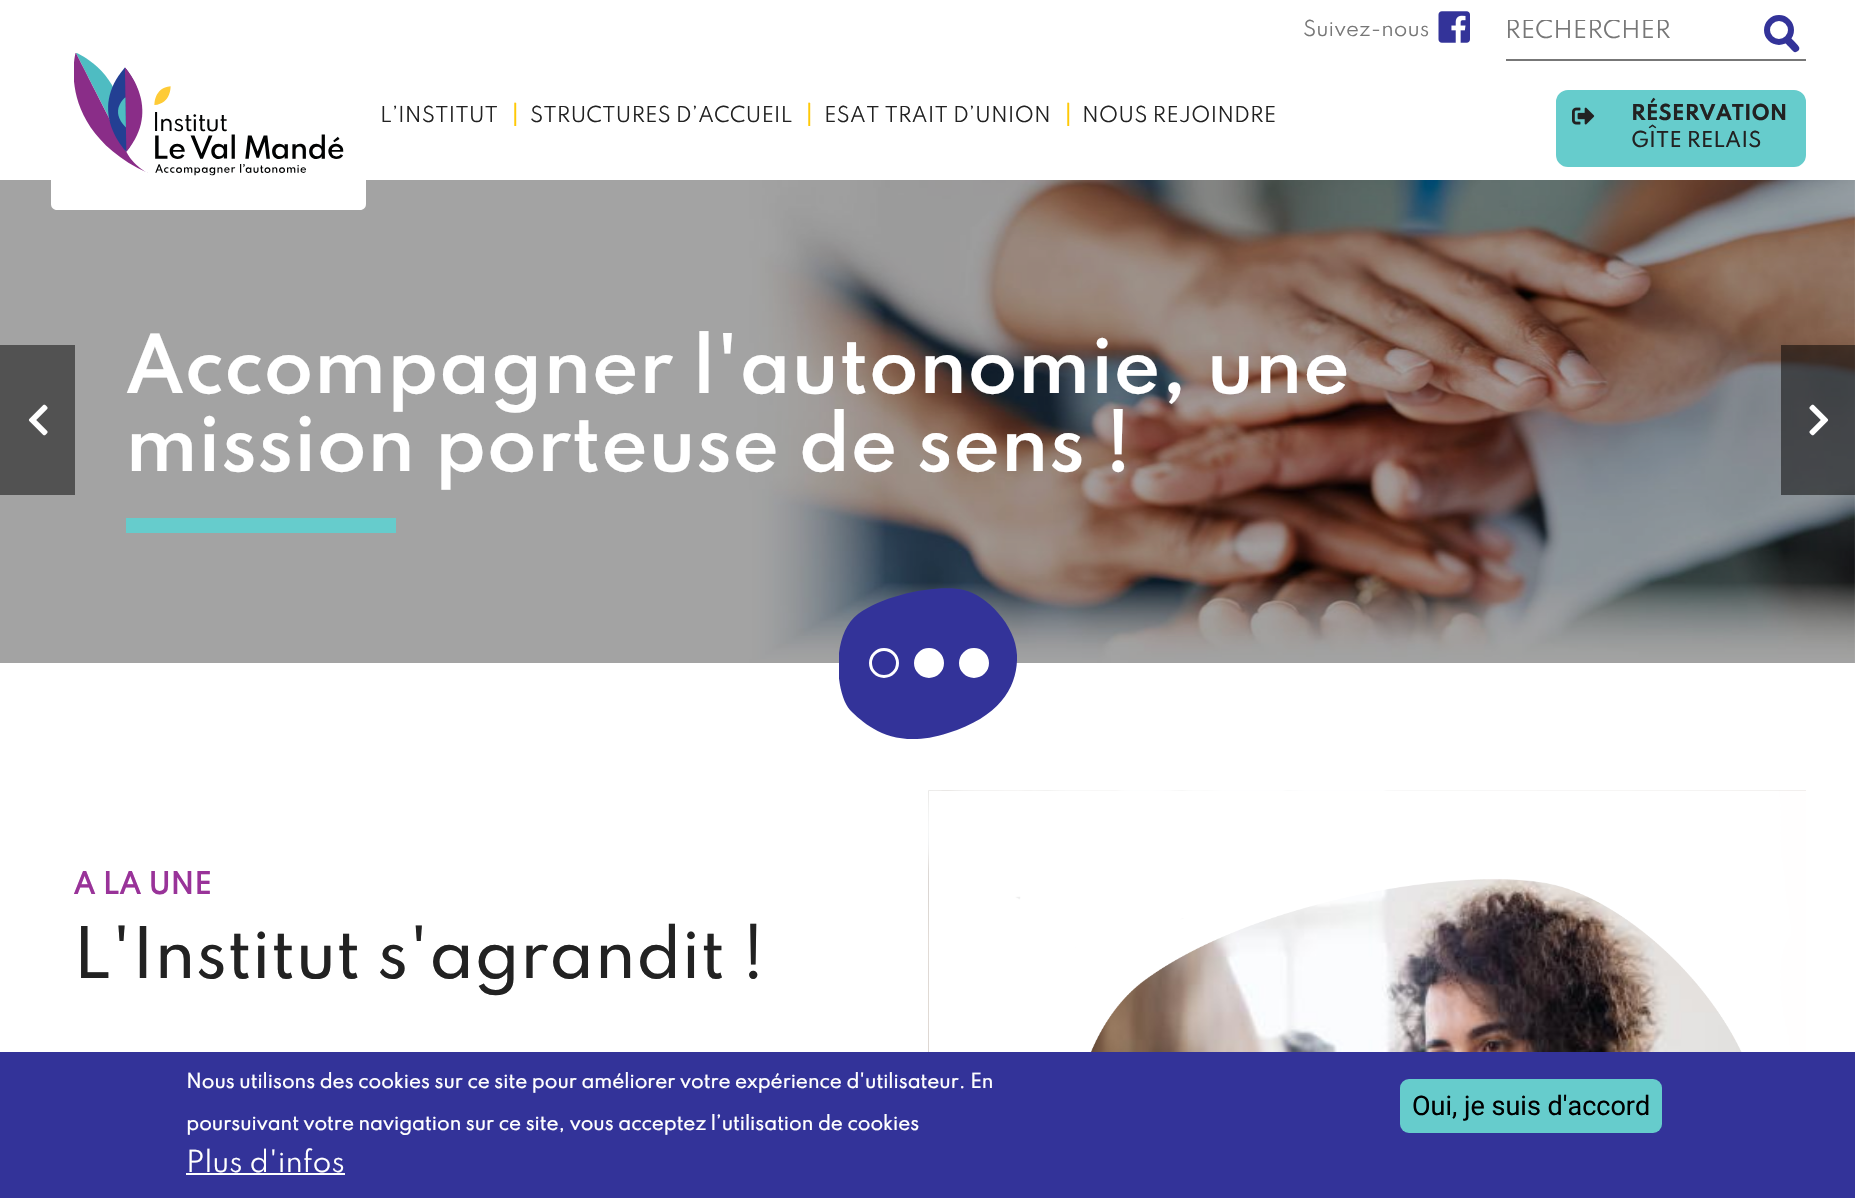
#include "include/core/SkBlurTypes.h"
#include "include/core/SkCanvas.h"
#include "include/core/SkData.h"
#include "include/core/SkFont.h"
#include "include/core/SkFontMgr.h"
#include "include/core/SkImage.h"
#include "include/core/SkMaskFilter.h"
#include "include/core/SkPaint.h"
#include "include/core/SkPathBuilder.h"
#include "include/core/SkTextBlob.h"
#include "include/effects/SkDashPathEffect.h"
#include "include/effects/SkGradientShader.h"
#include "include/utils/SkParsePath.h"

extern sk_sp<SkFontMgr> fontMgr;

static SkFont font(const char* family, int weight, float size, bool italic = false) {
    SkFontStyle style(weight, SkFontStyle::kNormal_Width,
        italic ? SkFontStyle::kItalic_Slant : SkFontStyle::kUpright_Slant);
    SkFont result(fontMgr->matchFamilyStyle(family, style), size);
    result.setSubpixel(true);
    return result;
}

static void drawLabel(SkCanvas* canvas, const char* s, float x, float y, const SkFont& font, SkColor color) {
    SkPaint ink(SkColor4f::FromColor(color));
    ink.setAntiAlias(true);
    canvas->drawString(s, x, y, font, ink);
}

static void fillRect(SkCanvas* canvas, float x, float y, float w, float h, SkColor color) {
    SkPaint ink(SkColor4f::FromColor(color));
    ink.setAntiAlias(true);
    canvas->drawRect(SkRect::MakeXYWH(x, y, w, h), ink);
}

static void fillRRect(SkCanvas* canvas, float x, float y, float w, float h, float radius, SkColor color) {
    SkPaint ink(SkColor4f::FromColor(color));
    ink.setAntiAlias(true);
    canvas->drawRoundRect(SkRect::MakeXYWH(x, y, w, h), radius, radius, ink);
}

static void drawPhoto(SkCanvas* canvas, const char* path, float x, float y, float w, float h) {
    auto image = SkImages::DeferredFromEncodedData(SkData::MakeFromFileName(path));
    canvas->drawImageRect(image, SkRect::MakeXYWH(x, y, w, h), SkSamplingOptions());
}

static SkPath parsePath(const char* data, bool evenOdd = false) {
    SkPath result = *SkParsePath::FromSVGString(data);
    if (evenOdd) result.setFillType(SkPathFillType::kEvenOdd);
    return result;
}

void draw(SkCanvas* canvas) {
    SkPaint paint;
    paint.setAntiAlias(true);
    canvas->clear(0xFFFFFFFF);
    drawPhoto(canvas, "assets/img4.png", 0, 180, 1855, 483);
    paint.setColor(0xFFFFFFFF);
    canvas->drawPath(parsePath("M51 0H366V204C366 207.5 363.5 210 360 210H57C53.5 210 51 207.5 51 204Z"), paint);
    drawPhoto(canvas, "assets/img1.png", 74, 53, 270, 123);
    SkFont font1 = font("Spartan", 400, 19.5f);
    drawLabel(canvas, "Suivez-nous", 1303, 36, font1, 0xFF777777);
    drawPhoto(canvas, "assets/img2.png", 1438, 11, 32, 32);
    drawLabel(canvas, "L’INSTITUT", 380, 122, font1, 0xFF222222);
    SkFont font2 = font("Spartan", 400, 27);
    drawLabel(canvas, "|", 510, 126, font2, 0xFFFFC907);
    drawLabel(canvas, "STRUCTURES D’ACCUEIL", 530, 122, font1, 0xFF222222);
    drawLabel(canvas, "|", 804, 126, font2, 0xFFFFC907);
    drawLabel(canvas, "ESAT TRAIT D’UNION", 824, 122, font1, 0xFF222222);
    drawLabel(canvas, "|", 1063, 126, font2, 0xFFFFC907);
    drawLabel(canvas, "NOUS REJOINDRE", 1082, 122, font1, 0xFF222222);
    paint.setColor(0xFF66CCCC);
    canvas->drawRoundRect(SkRect::MakeXYWH(1557, 91, 248, 75), 11, 11, paint);
    paint.setStroke(true);
    paint.setStrokeWidth(2);
    canvas->drawRoundRect(SkRect::MakeXYWH(1557, 91, 248, 75), 11, 11, paint);
    drawPhoto(canvas, "assets/img3.png", 1572, 107, 23, 18);
    SkFont font3 = font("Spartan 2", 700, 19.5f);
    drawLabel(canvas, "RÉSERVATION", 1631, 120, font3, 0xFF222222);
    SkFont font4 = font("Spartan", 500, 19.5f);
    drawLabel(canvas, "GÎTE RELAIS", 1631, 147, font4, 0xFF222222);
    fillRect(canvas, 1506, 59, 300, 2, 0xFF777777);
    canvas->save();
    canvas->clipRect(SkRect::MakeXYWH(1506, 20, 233, 27));
    SkFont font5 = font("Spartan", 400, 22.5f);
    drawLabel(canvas, "RECHERCHER", 1505, 38, font5, 0xFF777777);
    canvas->restore();
    paint.setStrokeWidth(6);
    paint.setColor(0xFF333399);
    canvas->drawCircle(1779, 30, 12, paint);
    paint.setStroke(false);
    canvas->drawPath(parsePath("M1790.5 37.5C1792 39 1798.5 45.5 1799 47C1799.5 48 1799.5 49.5 1798.5 50.5C1794.5 54 1793.5 51.5 1790.5 48.5C1789 46.5 1785 43.5 1784.5 41.5C1783 38.5 1788 34.5 1790.5 37.5Z"), paint);
    SkFont font6 = font("Spartan", 600, 72);
    drawLabel(canvas, "Accompagner l'autonomie, une", 125, 393, font6, 0xFFFFFFFF);
    drawLabel(canvas, "mission porteuse de sens !", 125, 471, font6, 0xFFFFFFFF);
    fillRect(canvas, 126, 518, 270, 15, 0xFF66CCCC);
    canvas->save();
    canvas->clipRect(SkRect::MakeXYWH(839, 588, 178, 152));
    canvas->drawPath(parsePath("M858 614C830 635 836 695 850 710C865 725 894 751 948 733C1002 716 1018 685 1017 655C1016 625 986 595 964 590C942 584 886 593 858 614"), paint);
    canvas->restore();
    paint.setStroke(true);
    paint.setStrokeWidth(3);
    paint.setColor(0xFFFFFFFF);
    canvas->drawCircle(884, 663, 13.5f, paint);
    paint.setStroke(false);
    canvas->drawCircle(929, 663, 13.5f, paint);
    paint.setStroke(true);
    canvas->drawCircle(929, 663, 13.5f, paint);
    paint.setStroke(false);
    canvas->drawCircle(974, 663, 13.5f, paint);
    paint.setStroke(true);
    canvas->drawCircle(974, 663, 13.5f, paint);
    fillRect(canvas, 0, 345, 75, 150, 0xFF525252);
    drawPhoto(canvas, "assets/img5.png", 28, 404, 20, 32);
    fillRect(canvas, 1781, 345, 74, 150, 0x80000000);
    drawPhoto(canvas, "assets/img6.png", 1809, 404, 20, 32);
    SkFont font7 = font("Spartan", 700, 27);
    drawLabel(canvas, "A LA UNE", 73, 894, font7, 0xFF993399);
    SkFont font8 = font("Spartan", 500, 63);
    drawLabel(canvas, "L'Institut s'agrandit !", 73, 978, font8, 0xFF222222);
    drawPhoto(canvas, "assets/img7.png", 928, 790, 878, 262);
    drawPhoto(canvas, "assets/img8.png", 928, 790, 878, 262);
    fillRect(canvas, 0, 1052, 1855, 146, 0xFF333399);
    SkFont font9 = font("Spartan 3", 700, 18);
    drawLabel(canvas, "Nous utilisons des cookies sur ce site pour améliorer votre expérience d'utilisateur. En", 186, 1088, font9, 0xFFFFFFFF);
    drawLabel(canvas, "poursuivant votre navigation sur ce site, vous acceptez l’utilisation de cookies", 186, 1130, font9, 0xFFFFFFFF);
    drawLabel(canvas, "Plus d'infos", 186, 1172, font2, 0xFFFFFFFF);
    fillRect(canvas, 186, 1173, 159, 2, 0xFFFFFFFF);
    fillRRect(canvas, 1400, 1079, 262, 54, 9, 0xFF66CCCC);
    SkFont font10 = font("Roboto", 400, 27);
    drawLabel(canvas, "Oui, je suis d'accord", 1412, 1115, font10, 0xFF000000);
}
